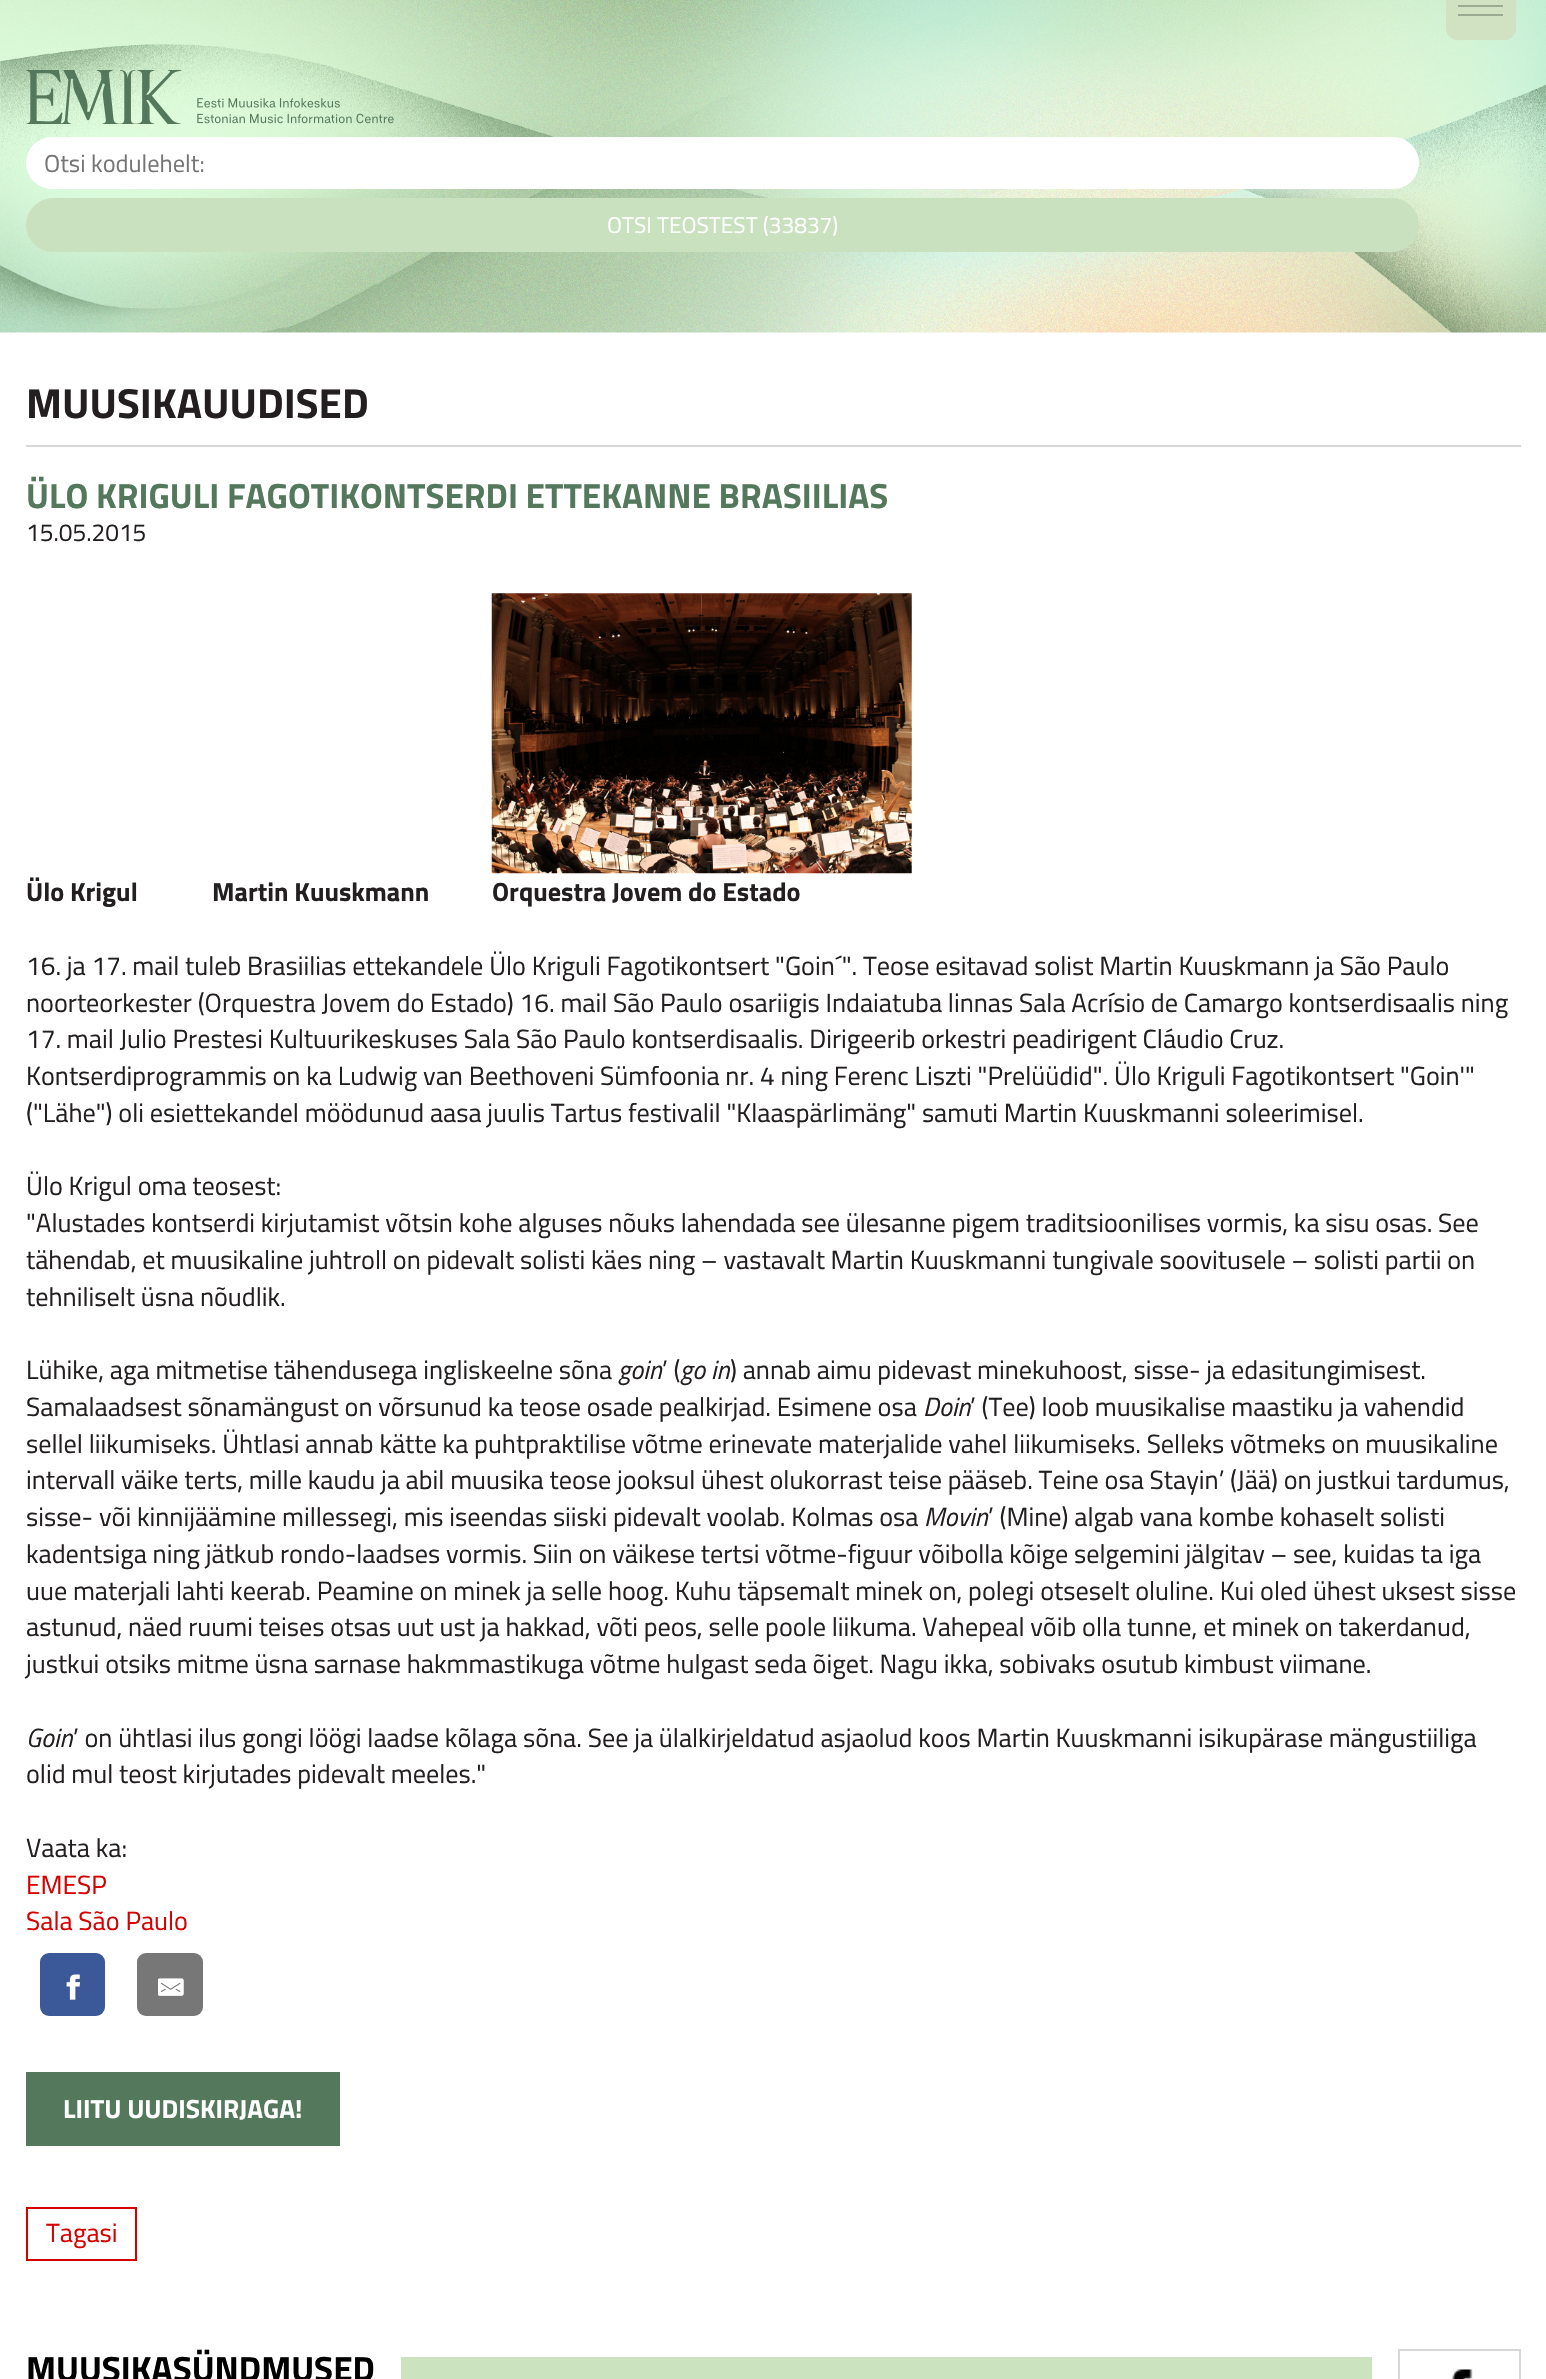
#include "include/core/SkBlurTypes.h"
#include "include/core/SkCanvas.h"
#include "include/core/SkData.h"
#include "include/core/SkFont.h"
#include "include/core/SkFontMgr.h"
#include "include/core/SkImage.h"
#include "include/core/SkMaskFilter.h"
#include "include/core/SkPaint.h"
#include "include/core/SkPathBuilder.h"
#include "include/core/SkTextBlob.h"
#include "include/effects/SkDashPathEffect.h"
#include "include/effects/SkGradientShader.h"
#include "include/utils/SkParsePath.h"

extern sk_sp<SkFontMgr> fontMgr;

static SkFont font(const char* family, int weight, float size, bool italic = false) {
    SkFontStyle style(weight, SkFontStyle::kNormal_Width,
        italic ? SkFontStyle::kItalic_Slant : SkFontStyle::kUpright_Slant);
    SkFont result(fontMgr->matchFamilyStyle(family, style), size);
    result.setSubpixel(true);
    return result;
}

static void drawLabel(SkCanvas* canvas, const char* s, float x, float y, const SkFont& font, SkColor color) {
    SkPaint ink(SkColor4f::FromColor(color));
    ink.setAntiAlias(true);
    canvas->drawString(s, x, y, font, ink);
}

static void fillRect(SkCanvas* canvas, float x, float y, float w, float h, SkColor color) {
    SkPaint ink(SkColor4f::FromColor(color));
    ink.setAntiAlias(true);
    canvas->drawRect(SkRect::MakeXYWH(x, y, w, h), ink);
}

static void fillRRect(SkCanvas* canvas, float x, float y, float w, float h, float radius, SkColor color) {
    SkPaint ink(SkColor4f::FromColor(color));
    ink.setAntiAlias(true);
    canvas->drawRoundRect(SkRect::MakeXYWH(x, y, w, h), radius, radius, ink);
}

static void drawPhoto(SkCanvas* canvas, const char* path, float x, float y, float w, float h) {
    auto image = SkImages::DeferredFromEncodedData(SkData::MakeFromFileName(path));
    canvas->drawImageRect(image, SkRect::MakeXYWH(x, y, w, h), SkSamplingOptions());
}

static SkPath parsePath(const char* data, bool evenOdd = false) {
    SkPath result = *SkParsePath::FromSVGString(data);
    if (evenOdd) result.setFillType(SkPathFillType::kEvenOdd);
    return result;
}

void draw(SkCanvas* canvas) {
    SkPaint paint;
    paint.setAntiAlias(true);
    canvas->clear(0xFFFFFFFF);
    drawPhoto(canvas, "assets/img1.png", 0, 0, 1546, 333);
    paint.setColor(0xFFD0E2C2);
    canvas->drawPath(parsePath("M1446 0H1516V28C1516 34.5 1510.5 40 1504 40H1458C1451.5 40 1446 34.5 1446 28Z"), paint);
    paint.setStroke(true);
    paint.setStrokeWidth(2);
    canvas->drawRoundRect(SkRect::MakeXYWH(1447, -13, 68, 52), 11, 11, paint);
    fillRect(canvas, 1458, 5, 45, 2, 0xFF9CAA92);
    fillRect(canvas, 1458, 14, 45, 2, 0xFF9CAA92);
    drawPhoto(canvas, "assets/img2.png", 26, 70, 368, 54);
    fillRRect(canvas, 26, 137, 1393, 52, 26, 0xFFFFFFFF);
    SkFont font1 = font("Titillium Web", 400, 24.5f);
    drawLabel(canvas, "Otsi kodulehelt:", 44, 172, font1, 0xFF757575);
    fillRRect(canvas, 26, 198, 1393, 54, 27, 0xFFC9E1BE);
    SkFont font2 = font("Titillium Web", 400, 22.75f);
    drawLabel(canvas, "OTSI TEOSTEST (33837)", 607, 233, font2, 0xFFFFFFFF);
    fillRect(canvas, 26, 445, 1495, 2, 0xFFD7D7D7);
    SkFont font3 = font("Titillium Web", 700, 42);
    drawLabel(canvas, "MUUSIKAUUDISED", 26, 418, font3, 0xFF231F20);
    SkFont font4 = font("Titillium Web", 700, 35);
    drawLabel(canvas, "ÜLO KRIGULI FAGOTIKONTSERDI ETTEKANNE BRASIILIAS", 26, 508, font4, 0xFF54785C);
    drawLabel(canvas, "15.05.2015", 26, 541, font1, 0xFF231F20);
    SkFont font5 = font("Titillium Web", 700, 26.25f);
    drawLabel(canvas, "Ülo Krigul", 26, 901, font5, 0xFF231F20);
    drawLabel(canvas, "Martin Kuuskmann", 212, 901, font5, 0xFF231F20);
    drawPhoto(canvas, "assets/img3.png", 491, 593, 421, 281);
    drawLabel(canvas, "Orquestra Jovem do Estado", 492, 901, font5, 0xFF231F20);
    SkFont font6 = font("Titillium Web", 400, 26.25f);
    drawLabel(canvas, "16. ja 17. mail tuleb Brasiilias ettekandele Ülo Kriguli Fagotikontsert \"Goin´\". Teose esitavad solist Martin Kuuskmann ja São Paulo", 26, 975, font6, 0xFF231F20);
    drawLabel(canvas, "noorteorkester (Orquestra Jovem do Estado) 16. mail São Paulo osariigis Indaiatuba linnas Sala Acrísio de Camargo kontserdisaalis ning", 26, 1012, font6, 0xFF231F20);
    drawLabel(canvas, "17. mail Julio Prestesi Kultuurikeskuses Sala São Paulo kontserdisaalis. Dirigeerib orkestri peadirigent Cláudio Cruz.", 26, 1048, font6, 0xFF231F20);
    drawLabel(canvas, "Kontserdiprogrammis on ka Ludwig van Beethoveni Sümfoonia nr. 4 ning Ferenc Liszti \"Prelüüdid\". Ülo Kriguli Fagotikontsert \"Goin'\"", 26, 1085, font6, 0xFF231F20);
    drawLabel(canvas, "(\"Lähe\") oli esiettekandel möödunud aasa juulis Tartus festivalil \"Klaaspärlimäng\" samuti Martin Kuuskmanni soleerimisel.", 26, 1122, font6, 0xFF231F20);
    drawLabel(canvas, "Ülo Krigul oma teosest:", 26, 1195, font6, 0xFF231F20);
    drawLabel(canvas, "\"Alustades kontserdi kirjutamist võtsin kohe alguses nõuks lahendada see ülesanne pigem traditsioonilises vormis, ka sisu osas. See", 26, 1232, font6, 0xFF231F20);
    drawLabel(canvas, "tähendab, et muusikaline juhtroll on pidevalt solisti käes ning – vastavalt Martin Kuuskmanni tungivale soovitusele – solisti partii on", 26, 1269, font6, 0xFF231F20);
    drawLabel(canvas, "tehniliselt üsna nõudlik.", 26, 1306, font6, 0xFF231F20);
    drawLabel(canvas, "Lühike, aga mitmetise tähendusega ingliskeelne sõna", 26, 1379, font6, 0xFF231F20);
    SkFont font7 = font("Titillium Web", 400, 26.25f, true);
    drawLabel(canvas, "goin", 618, 1379, font7, 0xFF231F20);
    drawLabel(canvas, "’ (", 662, 1379, font6, 0xFF231F20);
    drawLabel(canvas, "go in", 680, 1379, font7, 0xFF231F20);
    drawLabel(canvas, ") annab aimu pidevast minekuhoost, sisse- ja edasitungimisest.", 730, 1379, font6, 0xFF231F20);
    drawLabel(canvas, "Samalaadsest sõnamängust on võrsunud ka teose osade pealkirjad. Esimene osa", 26, 1416, font6, 0xFF231F20);
    drawLabel(canvas, "Doin", 923, 1416, font7, 0xFF231F20);
    drawLabel(canvas, "’ (Tee) loob muusikalise maastiku ja vahendid", 970, 1416, font6, 0xFF231F20);
    drawLabel(canvas, "sellel liikumiseks. Ühtlasi annab kätte ka puhtpraktilise võtme erinevate materjalide vahel liikumiseks. Selleks võtmeks on muusikaline", 26, 1453, font6, 0xFF231F20);
    drawLabel(canvas, "intervall väike terts, mille kaudu ja abil muusika teose jooksul ühest olukorrast teise pääseb. Teine osa Stayin’ (Jää) on justkui tardumus,", 26, 1489, font6, 0xFF231F20);
    drawLabel(canvas, "sisse- või kinnijäämine millessegi, mis iseendas siiski pidevalt voolab. Kolmas osa", 26, 1526, font6, 0xFF231F20);
    drawLabel(canvas, "Movin", 924, 1526, font7, 0xFF231F20);
    drawLabel(canvas, "’ (Mine) algab vana kombe kohaselt solisti", 988, 1526, font6, 0xFF231F20);
    drawLabel(canvas, "kadentsiga ning jätkub rondo-laadses vormis. Siin on väikese tertsi võtme-figuur võibolla kõige selgemini jälgitav – see, kuidas ta iga", 26, 1563, font6, 0xFF231F20);
    drawLabel(canvas, "uue materjali lahti keerab. Peamine on minek ja selle hoog. Kuhu täpsemalt minek on, polegi otseselt oluline. Kui oled ühest uksest sisse", 26, 1600, font6, 0xFF231F20);
    drawLabel(canvas, "astunud, näed ruumi teises otsas uut ust ja hakkad, võti peos, selle poole liikuma. Vahepeal võib olla tunne, et minek on takerdanud,", 26, 1636, font6, 0xFF231F20);
    drawLabel(canvas, "justkui otsiks mitme üsna sarnase hakmmastikuga võtme hulgast seda õiget. Nagu ikka, sobivaks osutub kimbust viimane.", 26, 1673, font6, 0xFF231F20);
    drawLabel(canvas, "Goin", 26, 1747, font7, 0xFF231F20);
    drawLabel(canvas, "’ on ühtlasi ilus gongi löögi laadse kõlaga sõna. See ja ülalkirjeldatud asjaolud koos Martin Kuuskmanni isikupärase mängustiiliga", 73, 1747, font6, 0xFF231F20);
    drawLabel(canvas, "olid mul teost kirjutades pidevalt meeles.\"", 26, 1783, font6, 0xFF231F20);
    drawLabel(canvas, "Vaata ka:", 26, 1857, font6, 0xFF231F20);
    drawLabel(canvas, "EMESP", 26, 1894, font6, 0xFFD60000);
    drawLabel(canvas, "Sala São Paulo", 26, 1930, font6, 0xFFD60000);
    fillRRect(canvas, 40, 1953, 65, 63, 9, 0xFF3B5998);
    drawPhoto(canvas, "assets/img4.png", 66, 1974, 14, 26);
    fillRRect(canvas, 137, 1953, 66, 63, 9, 0xFF777777);
    drawPhoto(canvas, "assets/img5.png", 158, 1978, 26, 18);
    fillRect(canvas, 26, 2072, 314, 74, 0xFF54785C);
    drawLabel(canvas, "LIITU UUDISKIRJAGA!", 63, 2118, font5, 0xFFFFFFFF);
    paint.setColor(0xFFD60000);
    canvas->drawRect(SkRect::MakeXYWH(27, 2208, 109, 52), paint);
    drawLabel(canvas, "Tagasi", 46, 2242, font6, 0xFFD60000);
    drawLabel(canvas, "MUUSIKASÜNDMUSED", 26, 2381, font4, 0xFF000000);
    fillRect(canvas, 401, 2357, 971, 22, 0xFFCBE3BF);
    paint.setColor(0xFFD7D7D7);
    canvas->drawRect(SkRect::MakeXYWH(1399, 2350, 121, 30), paint);
    drawPhoto(canvas, "assets/img6.png", 1452, 2369, 21, 10);
}
